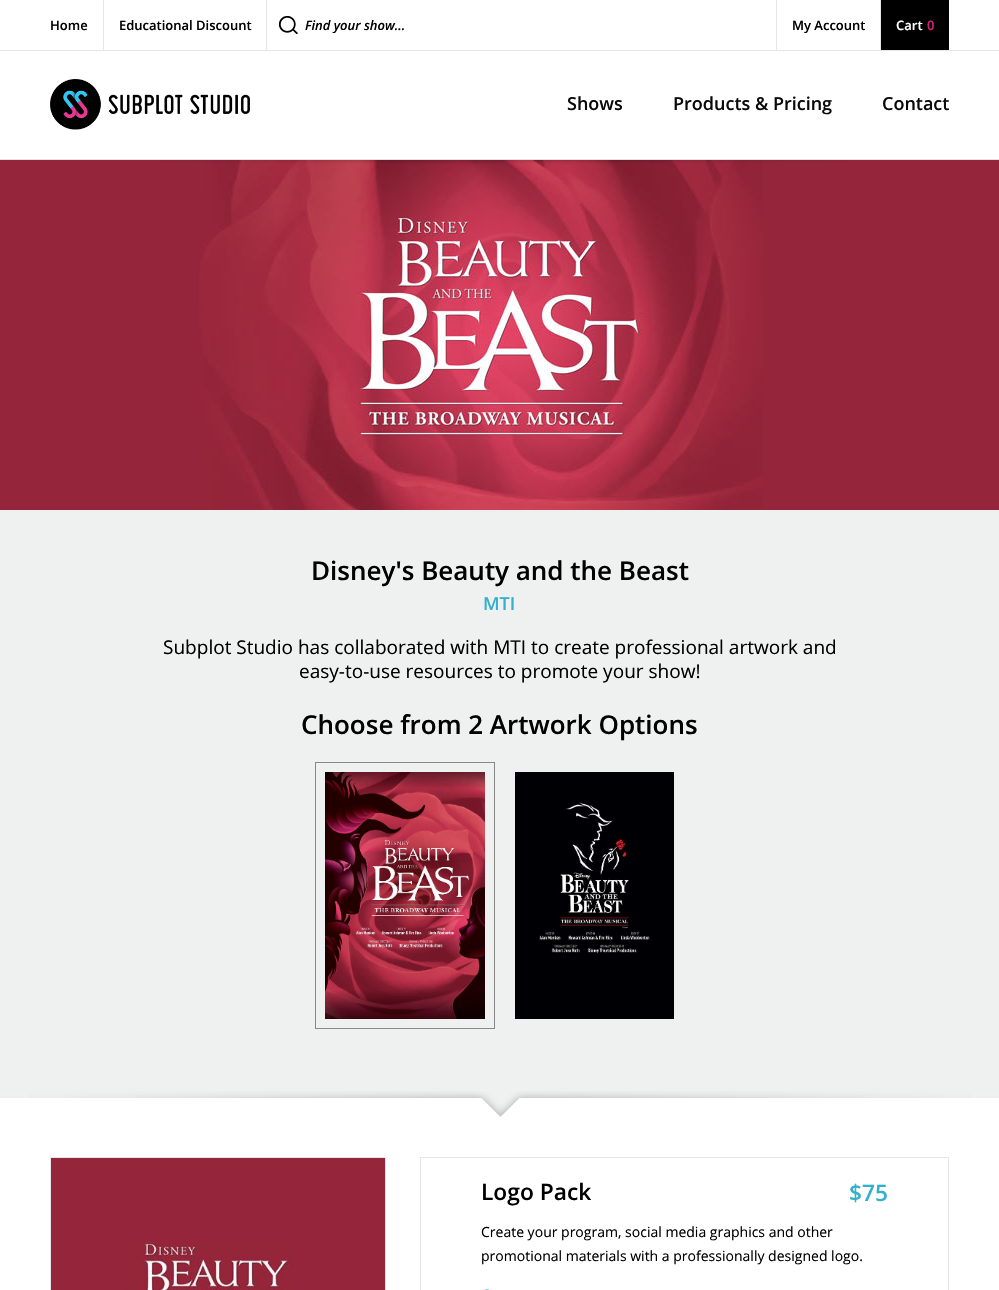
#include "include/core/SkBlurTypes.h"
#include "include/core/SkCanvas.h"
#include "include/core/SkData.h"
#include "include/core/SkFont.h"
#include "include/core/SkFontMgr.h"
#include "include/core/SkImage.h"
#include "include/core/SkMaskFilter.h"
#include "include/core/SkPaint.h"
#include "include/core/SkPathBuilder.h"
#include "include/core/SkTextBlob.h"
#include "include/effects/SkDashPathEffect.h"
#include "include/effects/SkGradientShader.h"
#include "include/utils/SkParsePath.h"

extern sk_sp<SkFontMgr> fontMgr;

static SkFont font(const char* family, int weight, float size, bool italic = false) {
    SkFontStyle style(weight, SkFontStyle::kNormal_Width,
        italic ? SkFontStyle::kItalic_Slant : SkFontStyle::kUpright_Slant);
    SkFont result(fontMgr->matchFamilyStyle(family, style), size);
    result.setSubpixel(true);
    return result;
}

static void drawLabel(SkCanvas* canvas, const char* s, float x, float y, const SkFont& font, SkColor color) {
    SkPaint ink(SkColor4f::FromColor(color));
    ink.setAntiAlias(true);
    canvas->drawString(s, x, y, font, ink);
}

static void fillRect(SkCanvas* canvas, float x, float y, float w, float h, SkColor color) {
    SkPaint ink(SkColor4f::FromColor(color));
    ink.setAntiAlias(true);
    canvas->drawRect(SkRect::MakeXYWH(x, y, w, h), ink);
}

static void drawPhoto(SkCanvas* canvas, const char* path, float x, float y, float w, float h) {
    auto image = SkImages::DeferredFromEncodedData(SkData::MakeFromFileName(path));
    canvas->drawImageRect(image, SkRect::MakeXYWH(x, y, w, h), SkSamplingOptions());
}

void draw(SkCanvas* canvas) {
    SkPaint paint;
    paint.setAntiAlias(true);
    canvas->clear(0xFFFFFFFF);
    fillRect(canvas, 0, 50, 999, 1, 0xFFE6E6E6);
    fillRect(canvas, 103, 0, 1, 50, 0xFFE6E6E6);
    SkFont font1 = font("Open Sans", 600, 13);
    drawLabel(canvas, "Home", 50, 30, font1, 0xFF000000);
    fillRect(canvas, 266, 0, 1, 50, 0xFFE6E6E6);
    drawLabel(canvas, "Educational Discount", 119, 30, font1, 0xFF000000);
    fillRect(canvas, 776, 0, 1, 50, 0xFFE6E6E6);
    drawPhoto(canvas, "assets/img1.png", 279, 16, 19, 18);
    SkFont font2 = font("Open Sans", 600, 13, true);
    drawLabel(canvas, "Find your show...", 305, 30, font2, 0xFF000000);
    fillRect(canvas, 880, 0, 1, 50, 0xFFE6E6E6);
    drawLabel(canvas, "My Account", 792, 30, font1, 0xFF000000);
    fillRect(canvas, 881, 0, 68, 50, 0xFF000000);
    drawLabel(canvas, "Cart", 896, 30, font1, 0xFFFFFFFF);
    drawLabel(canvas, "0", 927, 30, font1, 0xFFDF2077);
    fillRect(canvas, 0, 159, 999, 1, 0xFFE0E3E5);
    drawPhoto(canvas, "assets/img2.png", 50, 79, 200, 51);
    SkFont font3 = font("Open Sans", 600, 18);
    drawLabel(canvas, "Shows", 567, 110, font3, 0xFF0A0A0A);
    drawLabel(canvas, "Products & Pricing", 673, 110, font3, 0xFF0A0A0A);
    drawLabel(canvas, "Contact", 882, 110, font3, 0xFF0A0A0A);
    fillRect(canvas, 0, 160, 999, 350, 0xFF95253A);
    drawPhoto(canvas, "assets/img4.png", 199, 160, 564, 350);
    drawPhoto(canvas, "assets/img3.png", 160, 160, 690, 4);
    fillRect(canvas, 0, 510, 999, 588, 0xFFEFF1F1);
    drawPhoto(canvas, "assets/img5.png", 28, 1091, 945, 26);
    SkFont font4 = font("Open Sans", 600, 26);
    drawLabel(canvas, "Disney's Beauty and the Beast", 311, 580, font4, 0xFF000000);
    drawLabel(canvas, "MTI", 483, 610, font3, 0xFF33B0CC);
    SkFont font5 = font("Open Sans", 400, 19);
    drawLabel(canvas, "Subplot Studio has collaborated with MTI to create professional artwork and", 163, 654, font5, 0xFF000000);
    drawLabel(canvas, "easy-to-use resources to promote your show!", 299, 678, font5, 0xFF000000);
    drawLabel(canvas, "Choose from 2 Artwork Options", 301, 734, font4, 0xFF000000);
    paint.setStroke(true);
    paint.setStrokeWidth(1);
    paint.setColor(0xFF888888);
    canvas->drawRect(SkRect::MakeXYWH(315.5f, 762.5f, 179, 266), paint);
    drawPhoto(canvas, "assets/img6.png", 325, 772, 160, 247);
    drawPhoto(canvas, "assets/img7.png", 515, 772, 159, 247);
    paint.setStroke(false);
    paint.setColor(0xFF95253A);
    canvas->drawRect(SkRect::MakeXYWH(50.5f, 1157.5f, 335, 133), paint);
    paint.setStroke(true);
    paint.setColor(0xFFE6E6E6);
    canvas->drawRect(SkRect::MakeXYWH(50.5f, 1157.5f, 335, 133), paint);
    drawPhoto(canvas, "assets/img8.png", 125, 1240, 171, 50);
    canvas->drawRect(SkRect::MakeXYWH(420.5f, 1157.5f, 528, 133), paint);
    SkFont font6 = font("Open Sans", 600, 22.75f);
    drawLabel(canvas, "Logo Pack", 481, 1200, font6, 0xFF000000);
    drawLabel(canvas, "$75", 849, 1201, font6, 0xFF33B0CC);
    SkFont font7 = font("Open Sans", 400, 14);
    drawLabel(canvas, "Create your program, social media graphics and other", 481, 1237, font7, 0xFF000000);
    drawLabel(canvas, "promotional materials with a professionally designed logo.", 481, 1261, font7, 0xFF000000);
    drawPhoto(canvas, "assets/img9.png", 485, 1289, 5, 1);
}
